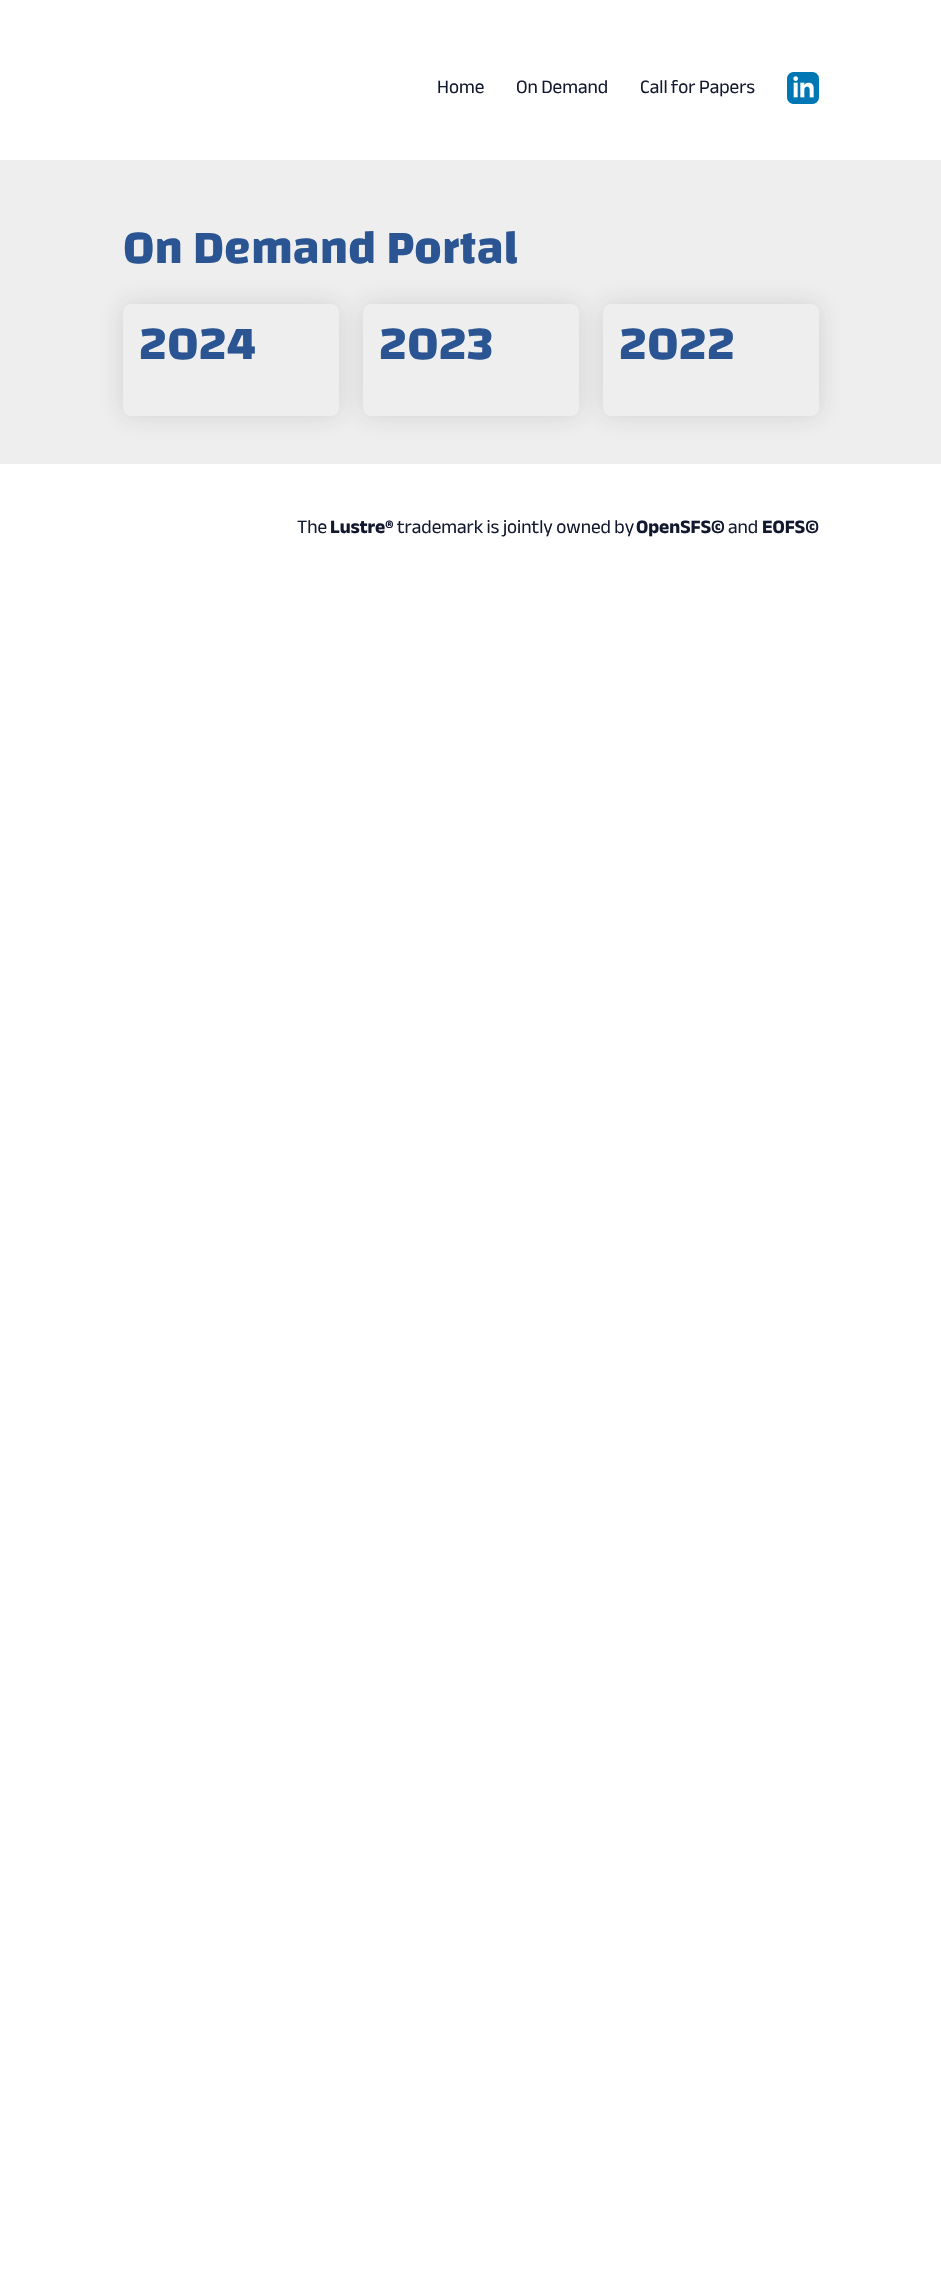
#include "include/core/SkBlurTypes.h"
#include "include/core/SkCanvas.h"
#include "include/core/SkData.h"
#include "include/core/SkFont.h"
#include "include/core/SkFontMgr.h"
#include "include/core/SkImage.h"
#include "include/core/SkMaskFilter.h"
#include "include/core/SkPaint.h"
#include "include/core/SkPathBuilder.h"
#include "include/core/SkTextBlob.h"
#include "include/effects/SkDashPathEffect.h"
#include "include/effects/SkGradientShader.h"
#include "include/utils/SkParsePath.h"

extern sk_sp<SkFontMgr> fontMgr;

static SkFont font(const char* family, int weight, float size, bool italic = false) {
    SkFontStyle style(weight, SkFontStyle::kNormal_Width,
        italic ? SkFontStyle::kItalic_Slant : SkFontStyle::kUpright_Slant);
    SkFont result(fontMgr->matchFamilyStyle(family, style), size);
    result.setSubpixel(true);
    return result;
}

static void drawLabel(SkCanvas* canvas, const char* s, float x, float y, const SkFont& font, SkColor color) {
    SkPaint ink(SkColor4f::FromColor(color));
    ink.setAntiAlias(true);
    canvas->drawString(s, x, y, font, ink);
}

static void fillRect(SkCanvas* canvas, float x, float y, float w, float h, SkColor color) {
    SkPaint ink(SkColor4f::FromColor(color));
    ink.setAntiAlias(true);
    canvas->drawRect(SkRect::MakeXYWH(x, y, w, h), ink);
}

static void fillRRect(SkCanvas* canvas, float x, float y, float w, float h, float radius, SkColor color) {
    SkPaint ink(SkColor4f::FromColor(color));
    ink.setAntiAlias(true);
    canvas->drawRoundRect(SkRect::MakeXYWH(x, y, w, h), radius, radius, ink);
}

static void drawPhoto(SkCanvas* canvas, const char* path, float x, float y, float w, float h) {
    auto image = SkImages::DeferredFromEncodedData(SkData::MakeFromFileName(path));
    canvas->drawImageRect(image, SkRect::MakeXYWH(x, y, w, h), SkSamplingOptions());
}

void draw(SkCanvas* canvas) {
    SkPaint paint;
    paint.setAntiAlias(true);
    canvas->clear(0xFFFFFFFF);
    SkFont font1 = font("Anek Bangla", 500, 19.25f);
    drawLabel(canvas, "Home", 437, 93, font1, 0xFF12192F);
    drawLabel(canvas, "On Demand", 516, 93, font1, 0xFF12192F);
    drawLabel(canvas, "Call for Papers", 640, 93, font1, 0xFF12192F);
    drawPhoto(canvas, "assets/img1.png", 787, 72, 32, 32);
    fillRect(canvas, 0, 160, 941, 304, 0xFFEEEEEE);
    SkFont font2 = font("Changa", 700, 48);
    drawLabel(canvas, "On Demand Portal", 123, 263, font2, 0xFF2B5592);
    paint.setColor(0x26262626);
    paint.setMaskFilter(SkMaskFilter::MakeBlur(kNormal_SkBlurStyle, 12));
    canvas->drawRoundRect(SkRect::MakeXYWH(123, 304, 216, 112), 8, 8, paint);
    paint.setMaskFilter(nullptr);
    fillRRect(canvas, 123, 304, 216, 112, 8, 0xFFEEEEEE);
    drawLabel(canvas, "2024", 139, 359, font2, 0xFF2B5592);
    paint.setMaskFilter(SkMaskFilter::MakeBlur(kNormal_SkBlurStyle, 12));
    canvas->drawRoundRect(SkRect::MakeXYWH(363, 304, 216, 112), 8, 8, paint);
    paint.setMaskFilter(nullptr);
    fillRRect(canvas, 363, 304, 216, 112, 8, 0xFFEEEEEE);
    drawLabel(canvas, "2023", 379, 359, font2, 0xFF2B5592);
    paint.setMaskFilter(SkMaskFilter::MakeBlur(kNormal_SkBlurStyle, 12));
    canvas->drawRoundRect(SkRect::MakeXYWH(603, 304, 216, 112), 8, 8, paint);
    paint.setMaskFilter(nullptr);
    fillRRect(canvas, 603, 304, 216, 112, 8, 0xFFEEEEEE);
    drawLabel(canvas, "2022", 619, 359, font2, 0xFF2B5592);
    drawLabel(canvas, "The", 297, 533, font1, 0xFF12192F);
    SkFont font3 = font("Anek Bangla", 700, 19.25f);
    drawLabel(canvas, "Lustre®", 330, 533, font3, 0xFF12192F);
    drawLabel(canvas, "trademark is jointly owned by", 397, 533, font1, 0xFF12192F);
    drawLabel(canvas, "OpenSFS©", 636, 533, font3, 0xFF12192F);
    drawLabel(canvas, "and", 728, 533, font1, 0xFF12192F);
    drawLabel(canvas, "EOFS©", 762, 533, font3, 0xFF12192F);
}
